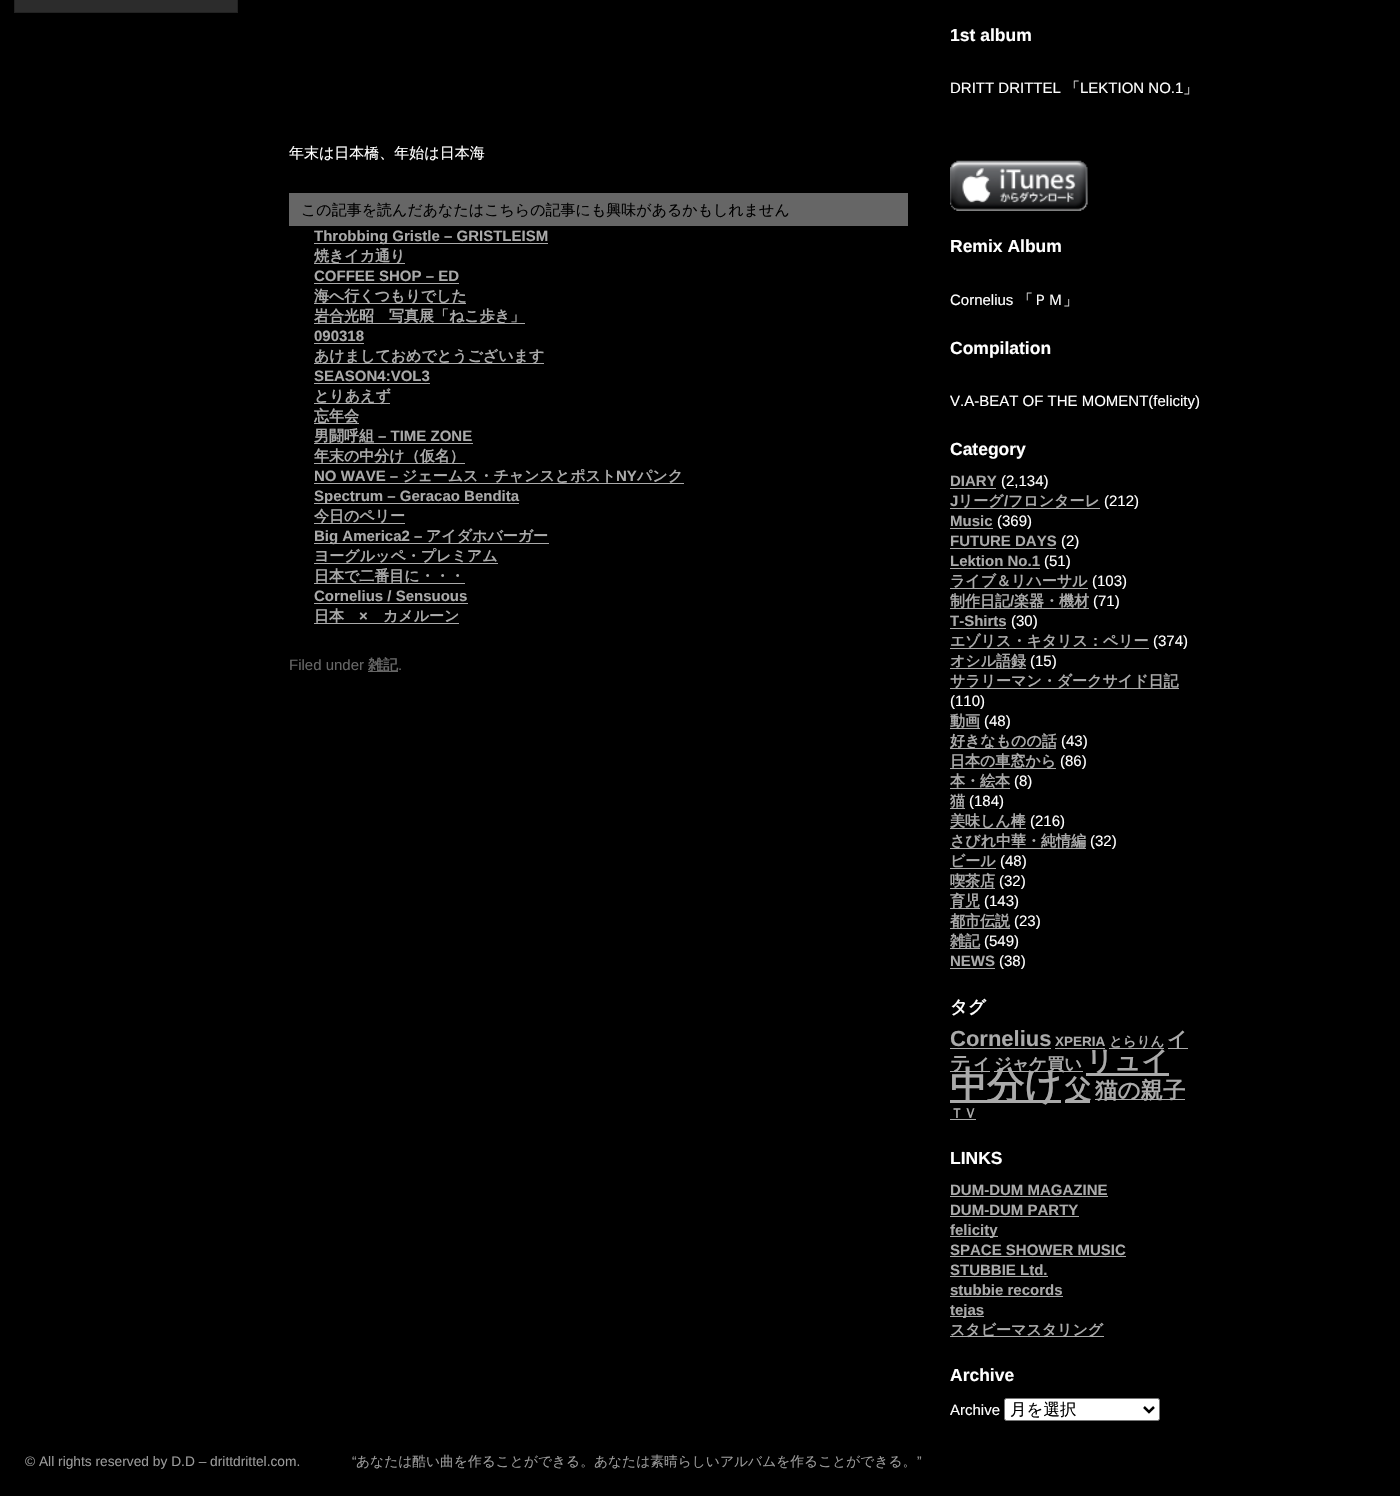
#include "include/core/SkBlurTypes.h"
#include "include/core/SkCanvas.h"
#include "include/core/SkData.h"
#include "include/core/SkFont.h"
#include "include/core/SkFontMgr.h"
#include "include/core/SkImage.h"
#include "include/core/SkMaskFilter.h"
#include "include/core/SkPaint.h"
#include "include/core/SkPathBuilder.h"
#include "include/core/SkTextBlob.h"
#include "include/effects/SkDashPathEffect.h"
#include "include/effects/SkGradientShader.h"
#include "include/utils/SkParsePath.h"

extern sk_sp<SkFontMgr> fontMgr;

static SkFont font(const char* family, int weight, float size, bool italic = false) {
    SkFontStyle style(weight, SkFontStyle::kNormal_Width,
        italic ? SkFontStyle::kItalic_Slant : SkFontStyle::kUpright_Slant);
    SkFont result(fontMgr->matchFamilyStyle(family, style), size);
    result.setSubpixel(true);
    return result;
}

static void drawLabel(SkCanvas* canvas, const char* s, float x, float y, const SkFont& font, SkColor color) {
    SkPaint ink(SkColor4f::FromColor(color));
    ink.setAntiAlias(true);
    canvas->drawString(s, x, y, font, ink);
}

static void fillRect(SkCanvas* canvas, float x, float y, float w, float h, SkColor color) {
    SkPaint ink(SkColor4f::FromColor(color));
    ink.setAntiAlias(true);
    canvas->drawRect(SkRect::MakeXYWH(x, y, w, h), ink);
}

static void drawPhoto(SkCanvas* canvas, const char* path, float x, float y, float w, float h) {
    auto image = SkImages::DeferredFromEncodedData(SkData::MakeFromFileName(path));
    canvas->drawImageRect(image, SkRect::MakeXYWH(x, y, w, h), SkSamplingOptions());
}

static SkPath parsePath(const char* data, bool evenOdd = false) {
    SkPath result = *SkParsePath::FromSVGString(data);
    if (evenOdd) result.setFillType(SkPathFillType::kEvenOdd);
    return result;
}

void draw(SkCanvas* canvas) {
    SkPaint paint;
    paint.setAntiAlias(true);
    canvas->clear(0xFF000000);
    paint.setColor(0xFF2C2C2C);
    canvas->drawRect(SkRect::MakeXYWH(14.5f, -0.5f, 223, 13), paint);
    paint.setStroke(true);
    paint.setStrokeWidth(1);
    paint.setColor(0xFF222222);
    canvas->drawRect(SkRect::MakeXYWH(14.5f, -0.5f, 223, 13), paint);
    SkFont font1 = font("WenQuanYi Zen Hei", 500, 15);
    drawLabel(canvas, "年末は日本橋、年始は日本海", 289, 158, font1, 0xFFFFFFFF);
    fillRect(canvas, 289, 193, 619, 33, 0xFF666666);
    drawLabel(canvas, "この記事を読んだあなたはこちらの記事にも興味があるかもしれません", 301, 215, font1, 0xFF000000);
    fillRect(canvas, 314, 243, 234, 1, 0xFFAAAAAA);
    SkFont font2 = font("Liberation Sans", 700, 15);
    drawLabel(canvas, "Throbbing Gristle – GRISTLEISM", 314, 241, font2, 0xFFAAAAAA);
    fillRect(canvas, 314, 263, 91, 1, 0xFFAAAAAA);
    SkFont font3 = font("WenQuanYi Zen Hei", 700, 15);
    drawLabel(canvas, "焼きイカ通り", 314, 261, font3, 0xFFAAAAAA);
    drawLabel(canvas, "COFFEE SHOP – ED", 314, 281, font2, 0xFFAAAAAA);
    fillRect(canvas, 314, 283, 145, 1, 0xFFAAAAAA);
    fillRect(canvas, 314, 303, 152, 1, 0xFFAAAAAA);
    drawLabel(canvas, "海へ行くつもりでした", 314, 301, font3, 0xFFAAAAAA);
    fillRect(canvas, 314, 323, 211, 1, 0xFFAAAAAA);
    drawLabel(canvas, "岩合光昭　写真展「ねこ歩き」", 314, 321, font3, 0xFFAAAAAA);
    drawLabel(canvas, "090318", 314, 341, font2, 0xFFAAAAAA);
    fillRect(canvas, 314, 343, 50, 1, 0xFFAAAAAA);
    fillRect(canvas, 314, 363, 230, 1, 0xFFAAAAAA);
    drawLabel(canvas, "あけましておめでとうございます", 314, 361, font3, 0xFFAAAAAA);
    drawLabel(canvas, "SEASON4:VOL3", 314, 381, font2, 0xFFAAAAAA);
    fillRect(canvas, 314, 383, 116, 1, 0xFFAAAAAA);
    fillRect(canvas, 314, 403, 76, 1, 0xFFAAAAAA);
    drawLabel(canvas, "とりあえず", 314, 401, font3, 0xFFAAAAAA);
    fillRect(canvas, 314, 423, 45, 1, 0xFFAAAAAA);
    drawLabel(canvas, "忘年会", 314, 421, font3, 0xFFAAAAAA);
    drawLabel(canvas, "男闘呼組", 314, 441, font3, 0xFFAAAAAA);
    drawLabel(canvas, "– TIME ZONE", 378, 441, font2, 0xFFAAAAAA);
    fillRect(canvas, 314, 443, 159, 1, 0xFFAAAAAA);
    fillRect(canvas, 314, 463, 151, 1, 0xFFAAAAAA);
    drawLabel(canvas, "年末の中分け（仮名）", 314, 461, font3, 0xFFAAAAAA);
    drawLabel(canvas, "NO WAVE –", 314, 481, font2, 0xFFAAAAAA);
    drawLabel(canvas, "ジェームス・チャンスとポスト", 402, 481, font3, 0xFFAAAAAA);
    drawLabel(canvas, "NY", 616, 481, font2, 0xFFAAAAAA);
    drawLabel(canvas, "パンク", 637, 481, font3, 0xFFAAAAAA);
    fillRect(canvas, 314, 483, 370, 1, 0xFFAAAAAA);
    fillRect(canvas, 314, 503, 205, 1, 0xFFAAAAAA);
    drawLabel(canvas, "Spectrum – Geracao Bendita", 314, 501, font2, 0xFFAAAAAA);
    fillRect(canvas, 314, 523, 91, 1, 0xFFAAAAAA);
    drawLabel(canvas, "今日のペリー", 314, 521, font3, 0xFFAAAAAA);
    fillRect(canvas, 314, 543, 235, 1, 0xFFAAAAAA);
    drawLabel(canvas, "Big America2 –", 314, 541, font2, 0xFFAAAAAA);
    drawLabel(canvas, "アイダホバーガー", 426, 541, font3, 0xFFAAAAAA);
    drawLabel(canvas, "ヨーグルッペ・プレミアム", 314, 561, font3, 0xFFAAAAAA);
    fillRect(canvas, 314, 563, 184, 1, 0xFFAAAAAA);
    drawLabel(canvas, "日本で二番目に・・・", 314, 581, font3, 0xFFAAAAAA);
    fillRect(canvas, 314, 583, 151, 1, 0xFFAAAAAA);
    drawLabel(canvas, "Cornelius / Sensuous", 314, 601, font2, 0xFFAAAAAA);
    fillRect(canvas, 314, 603, 154, 1, 0xFFAAAAAA);
    drawLabel(canvas, "日本", 314, 621, font3, 0xFFAAAAAA);
    drawLabel(canvas, "×", 359, 621, font2, 0xFFAAAAAA);
    drawLabel(canvas, "カメルーン", 383, 621, font3, 0xFFAAAAAA);
    fillRect(canvas, 314, 623, 145, 1, 0xFFAAAAAA);
    SkFont font4 = font("Liberation Sans", 400, 15);
    drawLabel(canvas, "Filed under", 289, 670, font4, 0xFF666666);
    fillRect(canvas, 368, 671, 30, 1, 0xFF666666);
    drawLabel(canvas, "雑記", 368, 670, font3, 0xFF666666);
    drawLabel(canvas, ".", 398, 670, font4, 0xFF666666);
    SkFont font5 = font("Liberation Sans", 700, 17.5f);
    drawLabel(canvas, "1st album", 950, 41, font5, 0xFFFFFFFF);
    drawLabel(canvas, "DRITT DRITTEL", 950, 93, font4, 0xFFFFFFFF);
    drawLabel(canvas, "「", 1065, 93, font1, 0xFFFFFFFF);
    drawLabel(canvas, "LEKTION NO.1", 1080, 93, font4, 0xFFFFFFFF);
    drawLabel(canvas, "」", 1183, 93, font1, 0xFFFFFFFF);
    drawPhoto(canvas, "assets/img1.png", 950, 160, 138, 51);
    drawLabel(canvas, "Remix Album", 950, 252, font5, 0xFFFFFFFF);
    drawLabel(canvas, "Cornelius", 950, 305, font4, 0xFFFFFFFF);
    drawLabel(canvas, "「ＰＭ」", 1018, 305, font1, 0xFFFFFFFF);
    drawLabel(canvas, "Compilation", 950, 354, font5, 0xFFFFFFFF);
    drawLabel(canvas, "V.A-BEAT OF THE MOMENT(felicity)", 950, 406, font4, 0xFFFFFFFF);
    drawLabel(canvas, "Category", 950, 455, font5, 0xFFFFFFFF);
    drawLabel(canvas, "DIARY", 950, 486, font2, 0xFFAAAAAA);
    fillRect(canvas, 950, 488, 46, 1, 0xFFAAAAAA);
    drawLabel(canvas, "(2,134)", 1001, 486, font4, 0xFFFFFFFF);
    drawLabel(canvas, "J", 950, 506, font2, 0xFFAAAAAA);
    fillRect(canvas, 950, 508, 150, 1, 0xFFAAAAAA);
    drawLabel(canvas, "リーグ", 958, 506, font3, 0xFFAAAAAA);
    drawLabel(canvas, "/", 1004, 506, font2, 0xFFAAAAAA);
    drawLabel(canvas, "フロンターレ", 1008, 506, font3, 0xFFAAAAAA);
    drawLabel(canvas, "(212)", 1104, 506, font4, 0xFFFFFFFF);
    drawLabel(canvas, "Music", 950, 526, font2, 0xFFAAAAAA);
    fillRect(canvas, 950, 528, 43, 1, 0xFFAAAAAA);
    drawLabel(canvas, "(369)", 997, 526, font4, 0xFFFFFFFF);
    drawLabel(canvas, "FUTURE DAYS", 950, 546, font2, 0xFFAAAAAA);
    fillRect(canvas, 950, 548, 106, 1, 0xFFAAAAAA);
    drawLabel(canvas, "(2)", 1061, 546, font4, 0xFFFFFFFF);
    drawLabel(canvas, "Lektion No.1", 950, 566, font2, 0xFFAAAAAA);
    fillRect(canvas, 950, 568, 90, 1, 0xFFAAAAAA);
    drawLabel(canvas, "(51)", 1044, 566, font4, 0xFFFFFFFF);
    fillRect(canvas, 950, 588, 138, 1, 0xFFAAAAAA);
    drawLabel(canvas, "ライブ＆リハーサル", 950, 586, font3, 0xFFAAAAAA);
    drawLabel(canvas, "(103)", 1092, 586, font4, 0xFFFFFFFF);
    fillRect(canvas, 950, 608, 139, 1, 0xFFAAAAAA);
    drawLabel(canvas, "制作日記", 950, 606, font3, 0xFFAAAAAA);
    drawLabel(canvas, "/", 1010, 606, font2, 0xFFAAAAAA);
    drawLabel(canvas, "楽器・機材", 1014, 606, font3, 0xFFAAAAAA);
    drawLabel(canvas, "(71)", 1093, 606, font4, 0xFFFFFFFF);
    drawLabel(canvas, "T-Shirts", 950, 626, font2, 0xFFAAAAAA);
    fillRect(canvas, 950, 628, 56, 1, 0xFFAAAAAA);
    drawLabel(canvas, "(30)", 1011, 626, font4, 0xFFFFFFFF);
    fillRect(canvas, 950, 648, 199, 1, 0xFFAAAAAA);
    drawLabel(canvas, "エゾリス・キタリス：ペリー", 950, 646, font3, 0xFFAAAAAA);
    drawLabel(canvas, "(374)", 1153, 646, font4, 0xFFFFFFFF);
    drawLabel(canvas, "オシル語録", 950, 666, font3, 0xFFAAAAAA);
    fillRect(canvas, 950, 668, 76, 1, 0xFFAAAAAA);
    drawLabel(canvas, "(15)", 1030, 666, font4, 0xFFFFFFFF);
    fillRect(canvas, 950, 688, 229, 1, 0xFFAAAAAA);
    drawLabel(canvas, "サラリーマン・ダークサイド日記", 950, 686, font3, 0xFFAAAAAA);
    drawLabel(canvas, "(110)", 950, 706, font4, 0xFFFFFFFF);
    drawLabel(canvas, "動画", 950, 726, font3, 0xFFAAAAAA);
    fillRect(canvas, 950, 728, 30, 1, 0xFFAAAAAA);
    drawLabel(canvas, "(48)", 984, 726, font4, 0xFFFFFFFF);
    fillRect(canvas, 950, 748, 106, 1, 0xFFAAAAAA);
    drawLabel(canvas, "好きなものの話", 950, 746, font3, 0xFFAAAAAA);
    drawLabel(canvas, "(43)", 1061, 746, font4, 0xFFFFFFFF);
    fillRect(canvas, 950, 768, 106, 1, 0xFFAAAAAA);
    drawLabel(canvas, "日本の車窓から", 950, 766, font3, 0xFFAAAAAA);
    drawLabel(canvas, "(86)", 1060, 766, font4, 0xFFFFFFFF);
    drawLabel(canvas, "本・絵本", 950, 786, font3, 0xFFAAAAAA);
    fillRect(canvas, 950, 788, 60, 1, 0xFFAAAAAA);
    drawLabel(canvas, "(8)", 1014, 786, font4, 0xFFFFFFFF);
    drawLabel(canvas, "猫", 950, 806, font3, 0xFFAAAAAA);
    fillRect(canvas, 950, 808, 15, 1, 0xFFAAAAAA);
    drawLabel(canvas, "(184)", 969, 806, font4, 0xFFFFFFFF);
    fillRect(canvas, 950, 828, 76, 1, 0xFFAAAAAA);
    drawLabel(canvas, "美味しん棒", 950, 826, font3, 0xFFAAAAAA);
    drawLabel(canvas, "(216)", 1030, 826, font4, 0xFFFFFFFF);
    fillRect(canvas, 950, 848, 136, 1, 0xFFAAAAAA);
    drawLabel(canvas, "さびれ中華・純情編", 950, 846, font3, 0xFFAAAAAA);
    drawLabel(canvas, "(32)", 1090, 846, font4, 0xFFFFFFFF);
    drawLabel(canvas, "ビール", 950, 866, font3, 0xFFAAAAAA);
    fillRect(canvas, 950, 868, 46, 1, 0xFFAAAAAA);
    drawLabel(canvas, "(48)", 1000, 866, font4, 0xFFFFFFFF);
    drawLabel(canvas, "喫茶店", 950, 886, font3, 0xFFAAAAAA);
    fillRect(canvas, 950, 888, 45, 1, 0xFFAAAAAA);
    drawLabel(canvas, "(32)", 999, 886, font4, 0xFFFFFFFF);
    fillRect(canvas, 950, 908, 30, 1, 0xFFAAAAAA);
    drawLabel(canvas, "育児", 950, 906, font3, 0xFFAAAAAA);
    drawLabel(canvas, "(143)", 984, 906, font4, 0xFFFFFFFF);
    drawLabel(canvas, "都市伝説", 950, 926, font3, 0xFFAAAAAA);
    fillRect(canvas, 950, 928, 60, 1, 0xFFAAAAAA);
    drawLabel(canvas, "(23)", 1014, 926, font4, 0xFFFFFFFF);
    drawLabel(canvas, "雑記", 950, 946, font3, 0xFFAAAAAA);
    fillRect(canvas, 950, 948, 30, 1, 0xFFAAAAAA);
    drawLabel(canvas, "(549)", 984, 946, font4, 0xFFFFFFFF);
    drawLabel(canvas, "NEWS", 950, 966, font2, 0xFFAAAAAA);
    fillRect(canvas, 950, 968, 45, 1, 0xFFAAAAAA);
    drawLabel(canvas, "(38)", 999, 966, font4, 0xFFFFFFFF);
    SkFont font6 = font("WenQuanYi Zen Hei", 700, 17.5f);
    drawLabel(canvas, "タグ", 950, 1013, font6, 0xFFFFFFFF);
    SkFont font7 = font("Liberation Sans", 700, 22);
    drawLabel(canvas, "Cornelius", 950, 1046, font7, 0xFFAAAAAA);
    fillRect(canvas, 950, 1048, 101, 1, 0xFFAAAAAA);
    SkFont font8 = font("Liberation Sans", 700, 13.5f);
    drawLabel(canvas, "XPERIA", 1055, 1046, font8, 0xFFAAAAAA);
    fillRect(canvas, 1055, 1048, 50, 1, 0xFFAAAAAA);
    fillRect(canvas, 1109, 1048, 55, 1, 0xFFAAAAAA);
    SkFont font9 = font("WenQuanYi Zen Hei", 700, 13.5f);
    drawLabel(canvas, "とらりん", 1109, 1046, font9, 0xFFAAAAAA);
    fillRect(canvas, 1168, 1048, 20, 1, 0xFFAAAAAA);
    SkFont font10 = font("WenQuanYi Zen Hei", 700, 20);
    drawLabel(canvas, "イ", 1167, 1046, font10, 0xFFAAAAAA);
    fillRect(canvas, 950, 1071, 40, 1, 0xFFAAAAAA);
    drawLabel(canvas, "ティ", 950, 1070, font10, 0xFFAAAAAA);
    fillRect(canvas, 994, 1071, 89, 1, 0xFFAAAAAA);
    SkFont font11 = font("WenQuanYi Zen Hei", 700, 17.25f);
    drawLabel(canvas, "ジャケ買い", 994, 1070, font11, 0xFFAAAAAA);
    fillRect(canvas, 1086, 1073, 83, 3, 0xFFAAAAAA);
    SkFont font12 = font("WenQuanYi Zen Hei", 700, 27);
    drawLabel(canvas, "リュイ", 1086, 1070, font12, 0xFFAAAAAA);
    fillRect(canvas, 950, 1100, 111, 3, 0xFFAAAAAA);
    SkFont font13 = font("WenQuanYi Zen Hei", 700, 37);
    drawLabel(canvas, "中分け", 950, 1098, font13, 0xFFAAAAAA);
    fillRect(canvas, 1065, 1100, 25, 3, 0xFFAAAAAA);
    SkFont font14 = font("WenQuanYi Zen Hei", 700, 26);
    drawLabel(canvas, "父", 1065, 1098, font14, 0xFFAAAAAA);
    fillRect(canvas, 1095, 1099, 90, 1, 0xFFAAAAAA);
    SkFont font15 = font("WenQuanYi Zen Hei", 700, 22.5f);
    drawLabel(canvas, "猫の親子", 1095, 1098, font15, 0xFFAAAAAA);
    drawLabel(canvas, "ＴＶ", 950, 1118, font9, 0xFFAAAAAA);
    fillRect(canvas, 950, 1119, 26, 1, 0xFFAAAAAA);
    drawLabel(canvas, "LINKS", 950, 1164, font5, 0xFFFFFFFF);
    drawLabel(canvas, "DUM-DUM MAGAZINE", 950, 1195, font2, 0xFFAAAAAA);
    fillRect(canvas, 950, 1196, 158, 1, 0xFFAAAAAA);
    drawLabel(canvas, "DUM-DUM PARTY", 950, 1215, font2, 0xFFAAAAAA);
    fillRect(canvas, 950, 1216, 129, 1, 0xFFAAAAAA);
    fillRect(canvas, 950, 1236, 48, 1, 0xFFAAAAAA);
    drawLabel(canvas, "felicity", 950, 1235, font2, 0xFFAAAAAA);
    drawLabel(canvas, "SPACE SHOWER MUSIC", 950, 1255, font2, 0xFFAAAAAA);
    fillRect(canvas, 950, 1256, 176, 1, 0xFFAAAAAA);
    drawLabel(canvas, "STUBBIE Ltd.", 950, 1275, font2, 0xFFAAAAAA);
    fillRect(canvas, 950, 1276, 98, 1, 0xFFAAAAAA);
    drawLabel(canvas, "stubbie records", 950, 1295, font2, 0xFFAAAAAA);
    fillRect(canvas, 950, 1296, 113, 1, 0xFFAAAAAA);
    fillRect(canvas, 950, 1316, 34, 1, 0xFFAAAAAA);
    drawLabel(canvas, "tejas", 950, 1315, font2, 0xFFAAAAAA);
    fillRect(canvas, 950, 1336, 154, 1, 0xFFAAAAAA);
    drawLabel(canvas, "スタビーマスタリング", 950, 1335, font3, 0xFFAAAAAA);
    drawLabel(canvas, "Archive", 950, 1381, font5, 0xFFFFFFFF);
    drawLabel(canvas, "Archive", 950, 1415, font4, 0xFFFFFFFF);
    paint.setStroke(false);
    paint.setColor(0xFFFFFFFF);
    canvas->drawRoundRect(SkRect::MakeXYWH(1004.5f, 1398.5f, 155, 22), 2, 2, paint);
    paint.setStroke(true);
    paint.setColor(0xFF767676);
    canvas->drawRoundRect(SkRect::MakeXYWH(1004.5f, 1398.5f, 155, 22), 2, 2, paint);
    paint.setStrokeWidth(2.5f);
    paint.setColor(0xFF000000);
    canvas->drawPath(parsePath("M1144 1407L1149 1412L1154 1407"), paint);
    SkFont font16 = font("WenQuanYi Zen Hei", 500, 16.5f);
    drawLabel(canvas, "月を選択", 1010, 1415, font16, 0xFF000000);
    SkFont font17 = font("Liberation Sans", 400, 13.75f);
    drawLabel(canvas, "© All rights reserved by D.D – drittdrittel.com.", 25, 1466, font17, 0xFF999999);
    drawLabel(canvas, "“", 352, 1466, font17, 0xFF999999);
    SkFont font18 = font("WenQuanYi Zen Hei", 500, 13.75f);
    drawLabel(canvas, "あなたは酷い曲を作ることができる。あなたは素晴らしいアルバムを作ることができる。", 356, 1466, font18, 0xFF999999);
    drawLabel(canvas, "”", 917, 1466, font17, 0xFF999999);
}
